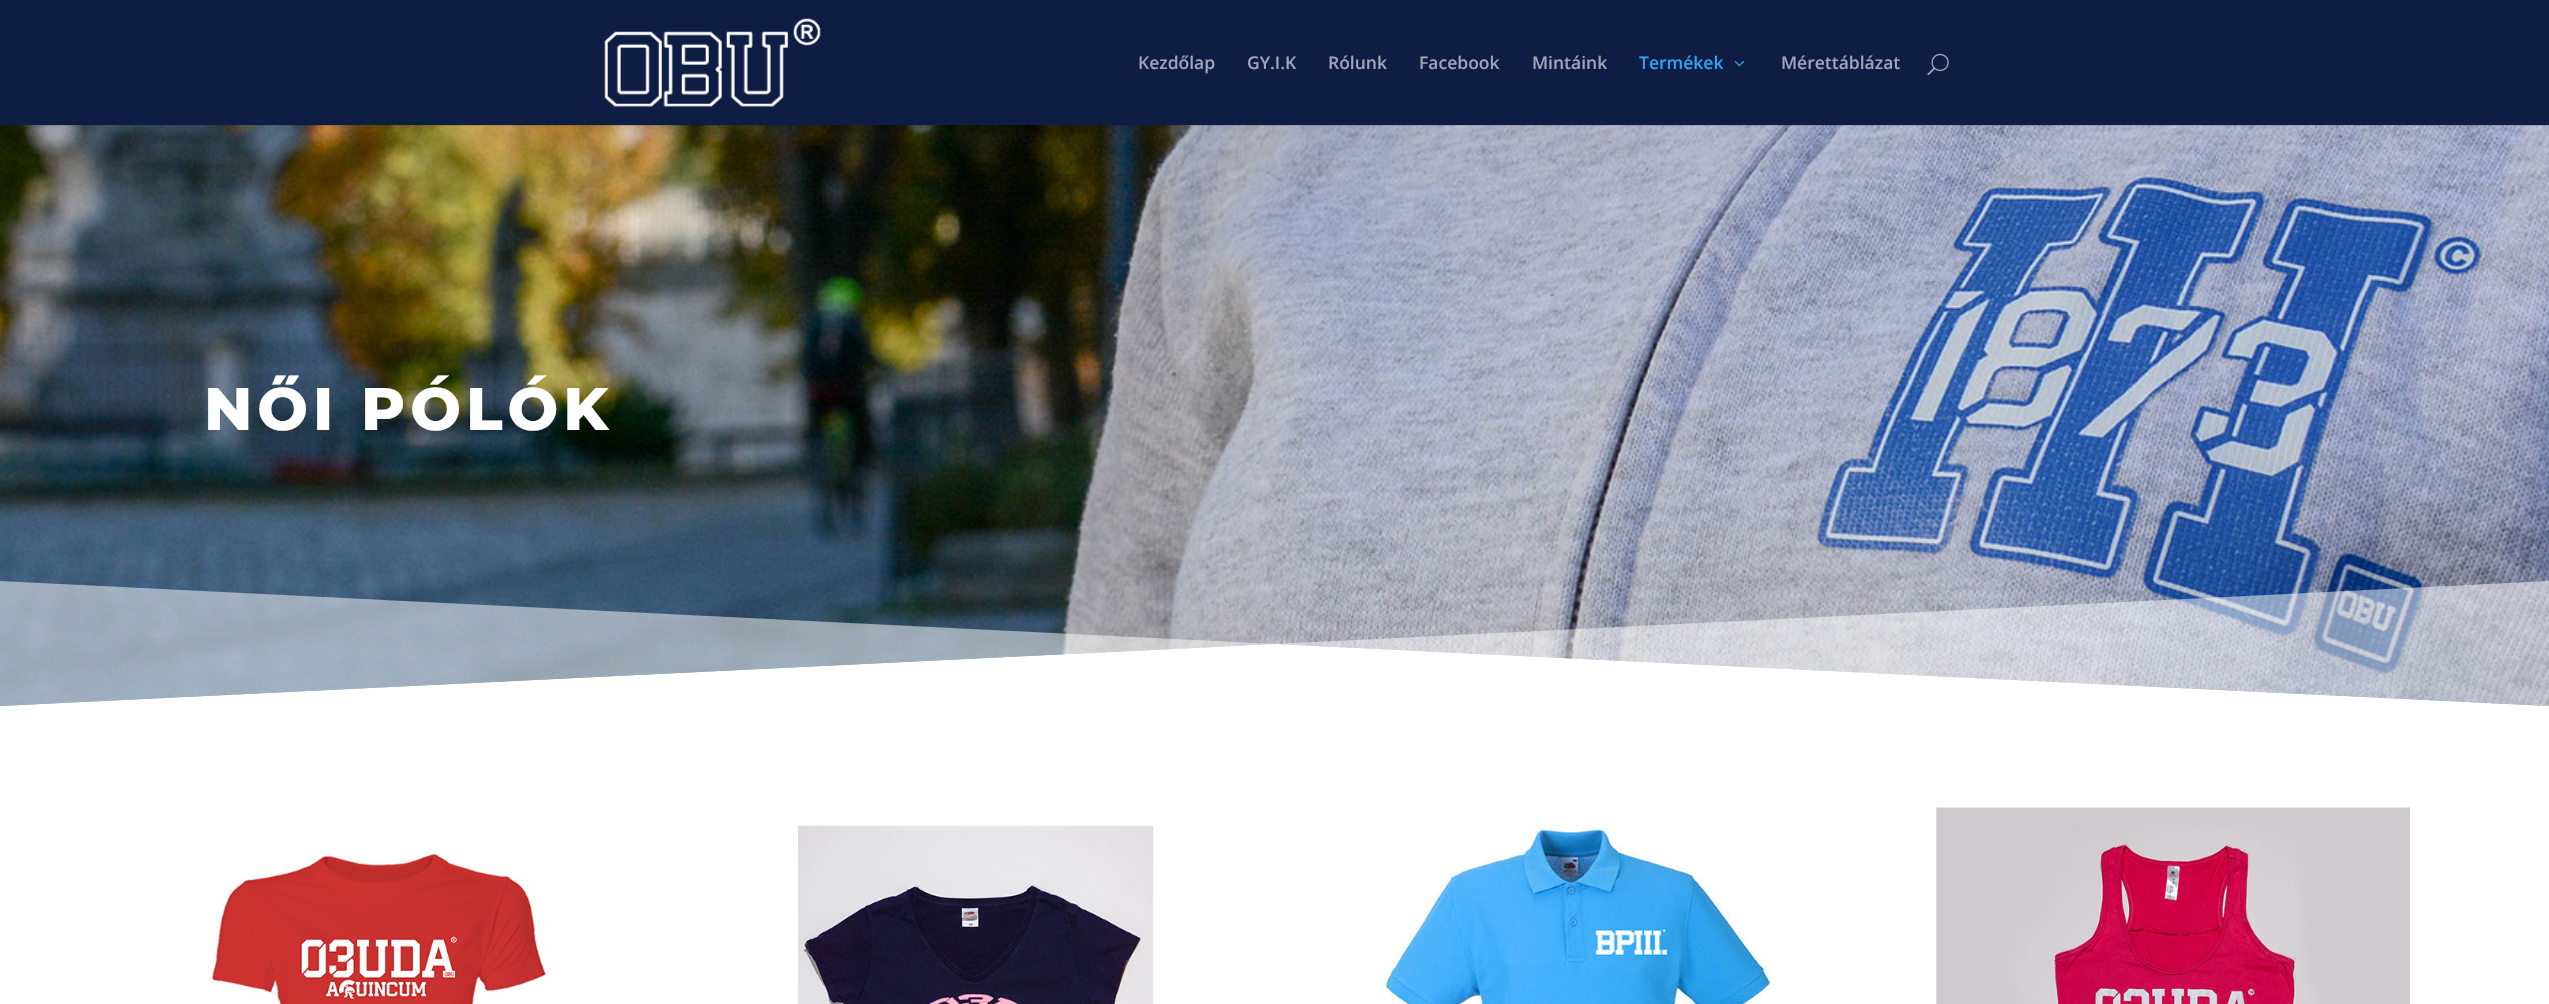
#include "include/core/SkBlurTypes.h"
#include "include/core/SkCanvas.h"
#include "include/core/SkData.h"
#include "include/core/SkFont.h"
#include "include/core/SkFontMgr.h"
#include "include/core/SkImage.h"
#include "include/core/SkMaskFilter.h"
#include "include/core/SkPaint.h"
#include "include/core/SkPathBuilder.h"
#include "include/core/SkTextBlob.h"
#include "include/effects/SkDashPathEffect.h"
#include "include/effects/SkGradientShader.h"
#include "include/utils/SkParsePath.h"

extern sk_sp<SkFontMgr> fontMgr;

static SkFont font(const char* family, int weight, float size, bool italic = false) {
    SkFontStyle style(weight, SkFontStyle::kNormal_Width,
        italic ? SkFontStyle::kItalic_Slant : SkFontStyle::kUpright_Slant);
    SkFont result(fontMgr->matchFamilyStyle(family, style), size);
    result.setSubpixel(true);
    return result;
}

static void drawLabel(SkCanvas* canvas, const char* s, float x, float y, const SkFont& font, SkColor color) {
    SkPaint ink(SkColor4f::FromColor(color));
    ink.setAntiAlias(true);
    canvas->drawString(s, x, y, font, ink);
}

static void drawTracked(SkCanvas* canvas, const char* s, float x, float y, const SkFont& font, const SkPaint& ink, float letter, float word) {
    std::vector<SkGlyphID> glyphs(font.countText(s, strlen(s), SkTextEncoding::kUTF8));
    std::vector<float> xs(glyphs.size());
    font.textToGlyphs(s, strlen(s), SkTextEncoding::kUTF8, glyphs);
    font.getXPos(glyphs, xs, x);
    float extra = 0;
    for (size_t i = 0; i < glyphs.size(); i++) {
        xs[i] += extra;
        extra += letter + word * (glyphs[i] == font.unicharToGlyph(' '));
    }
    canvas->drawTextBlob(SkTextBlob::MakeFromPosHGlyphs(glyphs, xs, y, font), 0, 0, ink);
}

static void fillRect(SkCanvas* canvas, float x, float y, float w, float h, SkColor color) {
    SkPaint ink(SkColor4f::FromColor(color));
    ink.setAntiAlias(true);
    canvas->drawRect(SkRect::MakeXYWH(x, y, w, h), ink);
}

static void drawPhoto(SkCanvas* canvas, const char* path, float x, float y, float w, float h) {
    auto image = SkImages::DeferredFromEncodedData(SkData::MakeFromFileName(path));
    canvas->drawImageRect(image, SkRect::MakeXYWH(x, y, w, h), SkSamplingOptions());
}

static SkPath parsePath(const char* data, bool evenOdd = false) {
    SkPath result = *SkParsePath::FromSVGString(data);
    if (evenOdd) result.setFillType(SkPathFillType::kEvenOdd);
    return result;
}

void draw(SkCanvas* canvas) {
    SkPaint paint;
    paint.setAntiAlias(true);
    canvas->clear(0xFFFFFFFF);
    drawPhoto(canvas, "assets/img4.png", 0, 125, 2549, 581);
    fillRect(canvas, 0, 125, 2549, 1, 0x1A000000);
    fillRect(canvas, 0, 0, 2549, 125, 0xFF0E1D43);
    drawPhoto(canvas, "assets/img1.png", 604, 18, 217, 89);
    SkFont font1 = font("Open Sans", 600, 17.5f);
    drawLabel(canvas, "Kezdőlap", 1138, 69, font1, 0xFF9FA5B4);
    drawLabel(canvas, "GY.I.K", 1247, 69, font1, 0xFF9FA5B4);
    drawLabel(canvas, "Rólunk", 1328, 69, font1, 0xFF9FA5B4);
    drawLabel(canvas, "Facebook", 1419, 69, font1, 0xFF9FA5B4);
    drawLabel(canvas, "Mintáink", 1532, 69, font1, 0xFF9FA5B4);
    drawLabel(canvas, "Termékek", 1639, 69, font1, 0xFF2EA3F2);
    drawPhoto(canvas, "assets/img2.png", 1734, 61, 10, 6);
    drawLabel(canvas, "Mérettáblázat", 1781, 69, font1, 0xFF9FA5B4);
    drawPhoto(canvas, "assets/img3.png", 1927, 53, 22, 23);
    SkFont font2 = font("Montserrat", 800, 60);
    paint.setColor(0xFFFFFFFF);
    drawTracked(canvas, "NŐI PÓLÓK", 204, 430, font2, paint, 5, 0);
    paint.setColor(0x80FFFFFF);
    canvas->drawPath(parsePath("M0 706L1275 644L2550 706V581L1275 644L0 581Z"), paint);
    paint.setColor(0xFFFFFFFF);
    canvas->drawPath(parsePath("M0 706H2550L1275 644Z"), paint);
    drawPhoto(canvas, "assets/img5.png", 210, 852, 341, 152);
    drawPhoto(canvas, "assets/img6.png", 798, 825, 356, 179);
    drawPhoto(canvas, "assets/img7.png", 1383, 825, 388, 179);
    drawPhoto(canvas, "assets/img8.png", 1936, 807, 474, 197);
}
